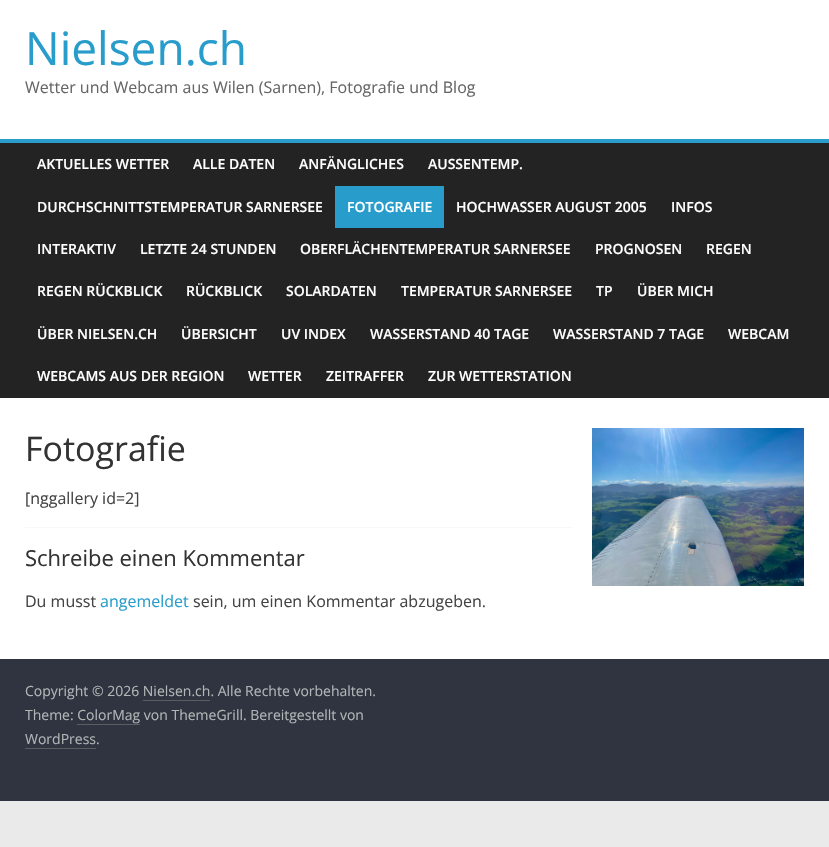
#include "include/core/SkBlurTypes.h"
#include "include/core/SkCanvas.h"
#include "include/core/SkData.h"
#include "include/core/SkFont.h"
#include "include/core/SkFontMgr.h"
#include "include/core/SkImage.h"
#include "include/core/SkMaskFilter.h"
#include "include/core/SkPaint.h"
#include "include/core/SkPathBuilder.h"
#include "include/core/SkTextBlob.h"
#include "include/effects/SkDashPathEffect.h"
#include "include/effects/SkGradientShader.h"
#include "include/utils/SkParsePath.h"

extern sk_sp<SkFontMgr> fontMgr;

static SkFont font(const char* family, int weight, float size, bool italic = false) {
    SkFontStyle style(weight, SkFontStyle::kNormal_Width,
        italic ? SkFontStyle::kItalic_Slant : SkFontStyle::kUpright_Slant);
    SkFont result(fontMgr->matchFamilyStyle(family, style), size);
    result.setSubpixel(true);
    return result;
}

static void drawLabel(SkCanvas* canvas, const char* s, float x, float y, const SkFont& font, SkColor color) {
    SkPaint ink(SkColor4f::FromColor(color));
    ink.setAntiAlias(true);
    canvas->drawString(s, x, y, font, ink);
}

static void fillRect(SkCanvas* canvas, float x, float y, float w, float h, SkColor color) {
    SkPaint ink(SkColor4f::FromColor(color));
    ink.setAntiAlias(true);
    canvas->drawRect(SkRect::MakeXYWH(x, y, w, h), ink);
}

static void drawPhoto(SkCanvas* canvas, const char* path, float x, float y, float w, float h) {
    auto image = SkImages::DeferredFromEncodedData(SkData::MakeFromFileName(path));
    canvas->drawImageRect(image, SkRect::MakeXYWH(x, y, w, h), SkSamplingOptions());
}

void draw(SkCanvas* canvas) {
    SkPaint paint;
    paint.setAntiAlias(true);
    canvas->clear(0xFFEAEAEA);
    fillRect(canvas, 0, 0, 829, 139, 0xFFFFFFFF);
    SkFont font1 = font("Open Sans", 400, 46);
    drawLabel(canvas, "Nielsen.ch", 25, 65, font1, 0xFF289DCC);
    SkFont font2 = font("Open Sans", 400, 16);
    drawLabel(canvas, "Wetter und Webcam aus Wilen (Sarnen), Fotografie und Blog", 25, 93, font2, 0xFF666666);
    fillRect(canvas, 0, 143, 829, 255, 0xFF232323);
    fillRect(canvas, 0, 139, 829, 4, 0xFF289DCC);
    SkFont font3 = font("Open Sans", 600, 14);
    drawLabel(canvas, "AKTUELLES WETTER", 37, 169, font3, 0xFFFFFFFF);
    drawLabel(canvas, "ALLE DATEN", 193, 169, font3, 0xFFFFFFFF);
    drawLabel(canvas, "ANFÄNGLICHES", 299, 169, font3, 0xFFFFFFFF);
    drawLabel(canvas, "AUSSENTEMP.", 428, 169, font3, 0xFFFFFFFF);
    drawLabel(canvas, "DURCHSCHNITTSTEMPERATUR SARNERSEE", 37, 212, font3, 0xFFFFFFFF);
    fillRect(canvas, 335, 186, 109, 42, 0xFF289DCC);
    drawLabel(canvas, "FOTOGRAFIE", 347, 212, font3, 0xFFFFFFFF);
    drawLabel(canvas, "HOCHWASSER AUGUST 2005", 456, 212, font3, 0xFFFFFFFF);
    drawLabel(canvas, "INFOS", 671, 212, font3, 0xFFFFFFFF);
    drawLabel(canvas, "INTERAKTIV", 37, 254, font3, 0xFFFFFFFF);
    drawLabel(canvas, "LETZTE 24 STUNDEN", 140, 254, font3, 0xFFFFFFFF);
    drawLabel(canvas, "OBERFLÄCHENTEMPERATUR SARNERSEE", 300, 254, font3, 0xFFFFFFFF);
    drawLabel(canvas, "PROGNOSEN", 595, 254, font3, 0xFFFFFFFF);
    drawLabel(canvas, "REGEN", 706, 254, font3, 0xFFFFFFFF);
    drawLabel(canvas, "REGEN RÜCKBLICK", 37, 296, font3, 0xFFFFFFFF);
    drawLabel(canvas, "RÜCKBLICK", 186, 296, font3, 0xFFFFFFFF);
    drawLabel(canvas, "SOLARDATEN", 286, 296, font3, 0xFFFFFFFF);
    drawLabel(canvas, "TEMPERATUR SARNERSEE", 401, 296, font3, 0xFFFFFFFF);
    drawLabel(canvas, "TP", 596, 296, font3, 0xFFFFFFFF);
    drawLabel(canvas, "ÜBER MICH", 637, 296, font3, 0xFFFFFFFF);
    drawLabel(canvas, "ÜBER NIELSEN.CH", 37, 339, font3, 0xFFFFFFFF);
    drawLabel(canvas, "ÜBERSICHT", 181, 339, font3, 0xFFFFFFFF);
    drawLabel(canvas, "UV INDEX", 281, 339, font3, 0xFFFFFFFF);
    drawLabel(canvas, "WASSERSTAND 40 TAGE", 370, 339, font3, 0xFFFFFFFF);
    drawLabel(canvas, "WASSERSTAND 7 TAGE", 553, 339, font3, 0xFFFFFFFF);
    drawLabel(canvas, "WEBCAM", 728, 339, font3, 0xFFFFFFFF);
    drawLabel(canvas, "WEBCAMS AUS DER REGION", 37, 381, font3, 0xFFFFFFFF);
    drawLabel(canvas, "WETTER", 248, 381, font3, 0xFFFFFFFF);
    drawLabel(canvas, "ZEITRAFFER", 326, 381, font3, 0xFFFFFFFF);
    drawLabel(canvas, "ZUR WETTERSTATION", 428, 381, font3, 0xFFFFFFFF);
    fillRect(canvas, 0, 398, 829, 261, 0xFFFFFFFF);
    SkFont font4 = font("Open Sans", 400, 34);
    drawLabel(canvas, "Fotografie", 25, 461, font4, 0xFF333333);
    drawLabel(canvas, "[nggallery id=2]", 25, 504, font2, 0xFF444444);
    fillRect(canvas, 25, 527, 547, 1, 0xFFF8F8F8);
    SkFont font5 = font("Open Sans", 400, 22);
    drawLabel(canvas, "Schreibe einen Kommentar", 25, 566, font5, 0xFF333333);
    drawLabel(canvas, "Du musst", 25, 607, font2, 0xFF444444);
    drawLabel(canvas, "angemeldet", 100, 607, font2, 0xFF289DCC);
    drawLabel(canvas, "sein, um einen Kommentar abzugeben.", 193, 607, font2, 0xFF444444);
    drawPhoto(canvas, "assets/img1.png", 592, 428, 212, 158);
    fillRect(canvas, 0, 659, 829, 142, 0xFF303440);
    SkFont font6 = font("Open Sans", 400, 14);
    drawLabel(canvas, "Copyright © 2026 Nielsen.ch. Alle Rechte vorbehalten.", 25, 696, font6, 0xFFB1B6B6);
    fillRect(canvas, 143, 700, 67, 1, 0xFF5A5D62);
    drawLabel(canvas, "Theme: ColorMag von ThemeGrill. Bereitgestellt von", 25, 720, font6, 0xFFB1B6B6);
    fillRect(canvas, 77, 724, 63, 1, 0xFF5A5D62);
    drawLabel(canvas, "WordPress.", 25, 744, font6, 0xFFB1B6B6);
    fillRect(canvas, 25, 748, 71, 1, 0xFF5A5D62);
}
